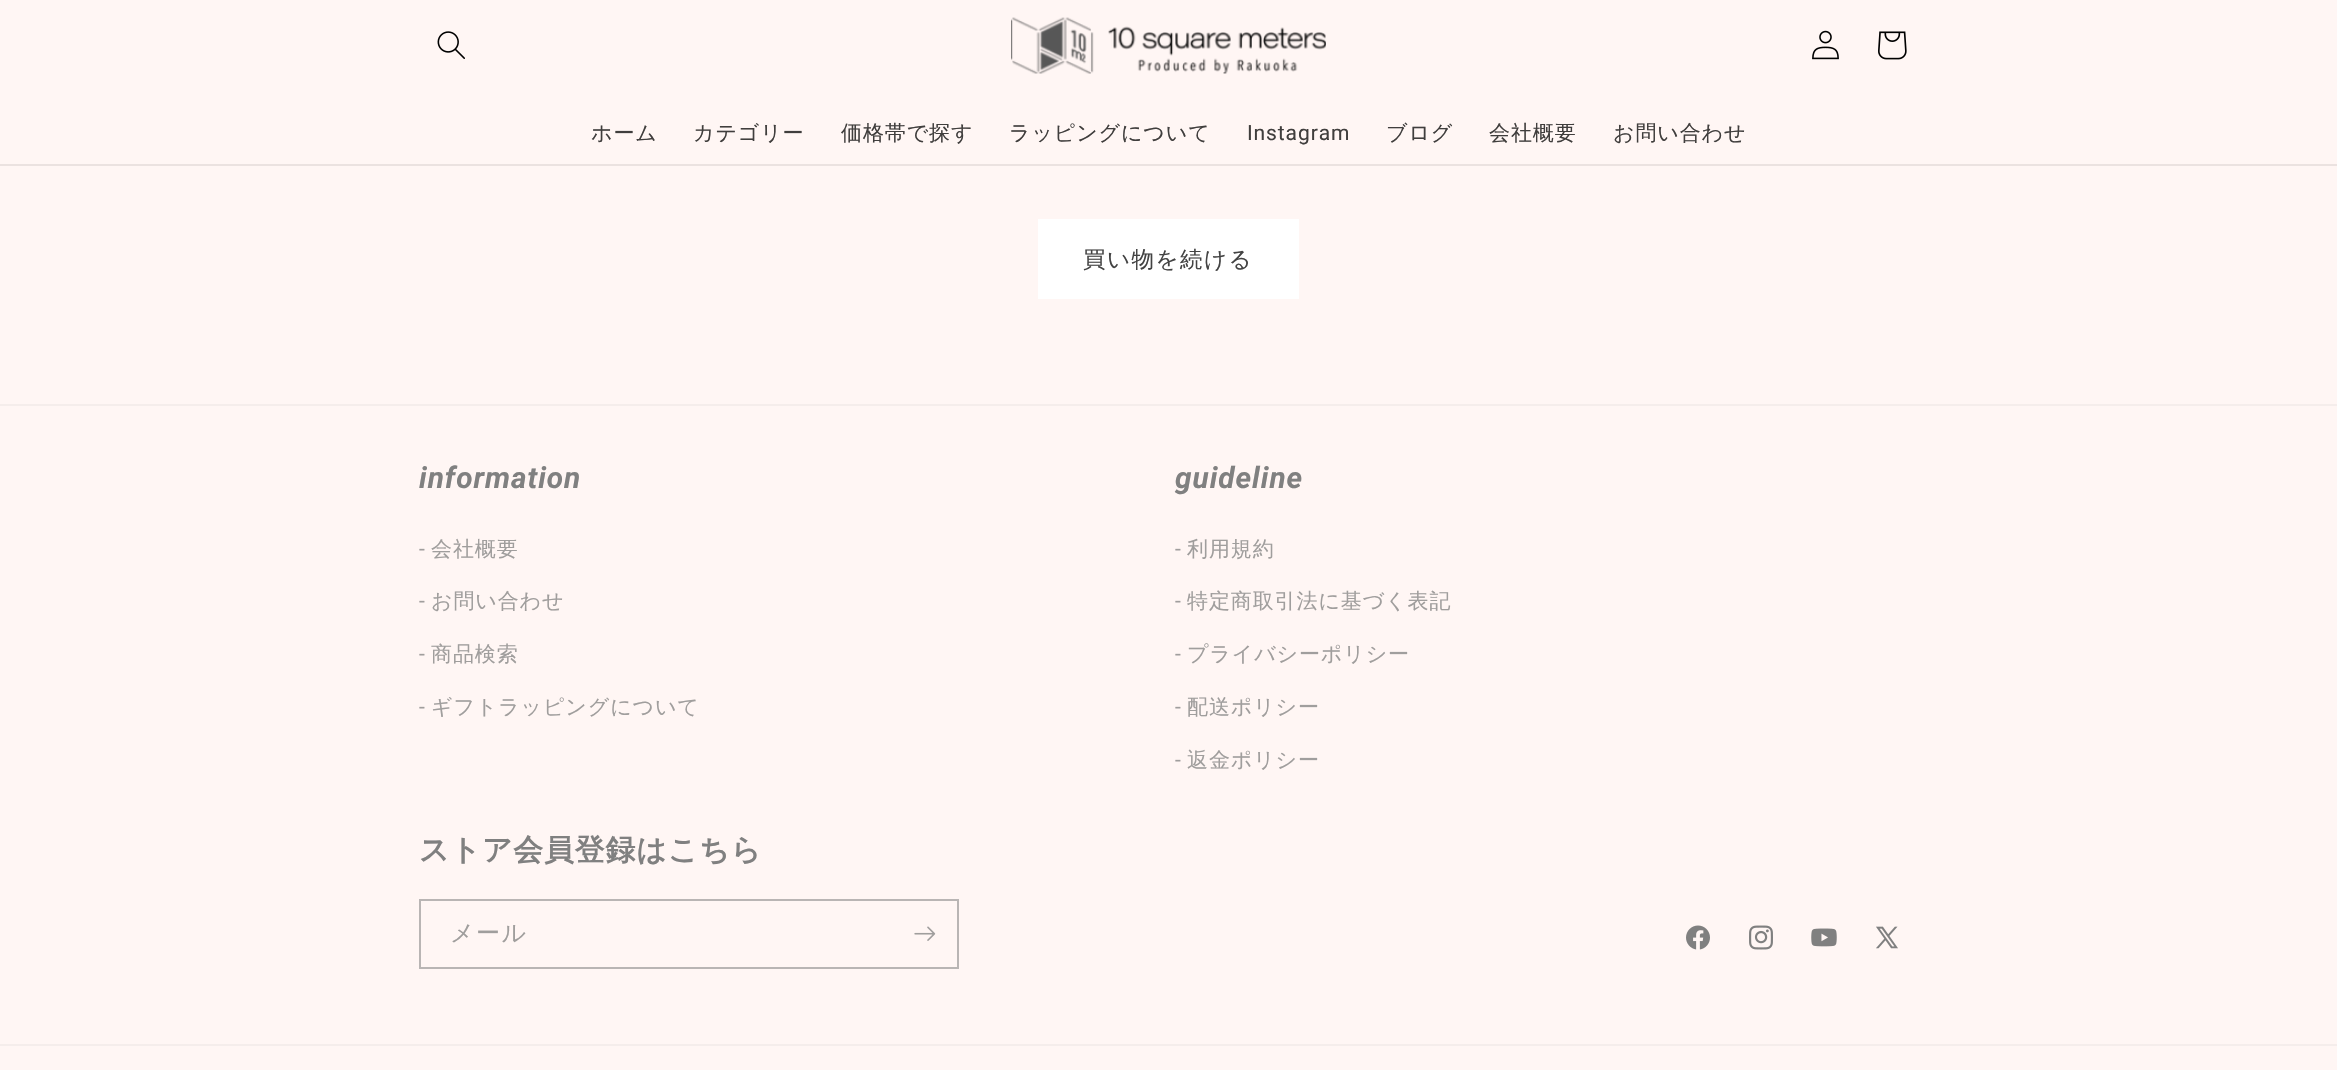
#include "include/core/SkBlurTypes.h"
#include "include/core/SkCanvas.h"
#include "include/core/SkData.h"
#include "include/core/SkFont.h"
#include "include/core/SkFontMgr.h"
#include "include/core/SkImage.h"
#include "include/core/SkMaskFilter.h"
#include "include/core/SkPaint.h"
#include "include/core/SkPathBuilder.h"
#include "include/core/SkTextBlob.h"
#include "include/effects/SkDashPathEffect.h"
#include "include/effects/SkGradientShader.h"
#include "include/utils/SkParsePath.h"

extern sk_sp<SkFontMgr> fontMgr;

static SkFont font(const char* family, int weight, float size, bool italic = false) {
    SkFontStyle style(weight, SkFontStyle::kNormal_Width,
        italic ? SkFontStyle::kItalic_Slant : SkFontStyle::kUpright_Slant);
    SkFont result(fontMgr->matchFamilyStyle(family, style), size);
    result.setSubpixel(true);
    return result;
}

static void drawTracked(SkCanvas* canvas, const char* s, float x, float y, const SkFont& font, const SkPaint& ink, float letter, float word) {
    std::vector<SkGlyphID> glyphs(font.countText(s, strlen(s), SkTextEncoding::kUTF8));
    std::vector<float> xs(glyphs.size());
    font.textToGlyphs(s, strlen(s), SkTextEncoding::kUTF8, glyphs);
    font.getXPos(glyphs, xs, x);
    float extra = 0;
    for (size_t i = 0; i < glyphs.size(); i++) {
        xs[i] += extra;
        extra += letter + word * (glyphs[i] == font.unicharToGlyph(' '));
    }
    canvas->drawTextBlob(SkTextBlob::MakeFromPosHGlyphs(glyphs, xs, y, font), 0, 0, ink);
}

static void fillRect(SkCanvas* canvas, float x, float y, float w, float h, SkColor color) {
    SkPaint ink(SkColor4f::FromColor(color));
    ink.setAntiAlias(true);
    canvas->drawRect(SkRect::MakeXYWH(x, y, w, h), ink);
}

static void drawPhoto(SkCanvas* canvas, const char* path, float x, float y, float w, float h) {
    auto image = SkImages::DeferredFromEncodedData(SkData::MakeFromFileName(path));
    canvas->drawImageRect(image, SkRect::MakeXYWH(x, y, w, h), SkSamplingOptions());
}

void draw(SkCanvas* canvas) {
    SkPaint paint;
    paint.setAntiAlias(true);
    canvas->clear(0xFFFFF6F4);
    fillRect(canvas, 0, 164, 2337, 2, 0xFFEBE2E0);
    drawPhoto(canvas, "assets/img1.png", 437, 31, 28, 28);
    drawPhoto(canvas, "assets/img2.png", 1011, 17, 315, 57);
    drawPhoto(canvas, "assets/img3.png", 1812, 30, 27, 30);
    drawPhoto(canvas, "assets/img4.png", 1878, 31, 29, 29);
    SkFont font1 = font("WenQuanYi Zen Hei", 500, 21);
    paint.setColor(0xFF403E3D);
    drawTracked(canvas, "ホーム", 591, 140, font1, paint, 0.9f, 0);
    drawTracked(canvas, "カテゴリー", 693, 140, font1, paint, 0.9f, 0);
    drawTracked(canvas, "価格帯で探す", 841, 140, font1, paint, 0.9f, 0);
    drawTracked(canvas, "ラッピングについて", 1009, 140, font1, paint, 0.9f, 0);
    SkFont font2 = font("Roboto", 400, 21);
    drawTracked(canvas, "Instagram", 1247, 140, font2, paint, 0.9f, 0);
    drawTracked(canvas, "ブログ", 1386, 140, font1, paint, 0.9f, 0);
    drawTracked(canvas, "会社概要", 1489, 140, font1, paint, 0.9f, 0);
    drawTracked(canvas, "お問い合わせ", 1613, 140, font1, paint, 0.9f, 0);
    fillRect(canvas, 1038, 219, 261, 80, 0xFFFFFFFF);
    SkFont font3 = font("WenQuanYi Zen Hei", 500, 22.5f);
    paint.setColor(0xFF434343);
    drawTracked(canvas, "買い物を続ける", 1083, 267, font3, paint, 1.5f, 0);
    fillRect(canvas, 0, 404, 2337, 2, 0xFFF5EDEB);
    SkFont font4 = font("Roboto", 700, 29.75f, true);
    paint.setColor(0xFF808080);
    drawTracked(canvas, "information", 419, 488, font4, paint, 1, 0);
    paint.setColor(0xFFA09E9D);
    drawTracked(canvas, "-", 419, 556, font2, paint, 0.9f, 0);
    drawTracked(canvas, "会社概要", 431, 556, font1, paint, 0.9f, 0);
    drawTracked(canvas, "-", 419, 608, font2, paint, 0.9f, 0);
    drawTracked(canvas, "お問い合わせ", 431, 608, font1, paint, 0.9f, 0);
    drawTracked(canvas, "-", 419, 661, font2, paint, 0.9f, 0);
    drawTracked(canvas, "商品検索", 431, 661, font1, paint, 0.9f, 0);
    drawTracked(canvas, "-", 419, 714, font2, paint, 0.9f, 0);
    drawTracked(canvas, "ギフトラッピングについて", 431, 714, font1, paint, 0.9f, 0);
    paint.setColor(0xFF808080);
    drawTracked(canvas, "guideline", 1175, 488, font4, paint, 1, 0);
    paint.setColor(0xFFA09E9D);
    drawTracked(canvas, "-", 1175, 556, font2, paint, 0.9f, 0);
    drawTracked(canvas, "利用規約", 1187, 556, font1, paint, 0.9f, 0);
    drawTracked(canvas, "-", 1175, 608, font2, paint, 0.9f, 0);
    drawTracked(canvas, "特定商取引法に基づく表記", 1187, 608, font1, paint, 0.9f, 0);
    drawTracked(canvas, "-", 1175, 661, font2, paint, 0.9f, 0);
    drawTracked(canvas, "プライバシーポリシー", 1187, 661, font1, paint, 0.9f, 0);
    drawTracked(canvas, "-", 1175, 714, font2, paint, 0.9f, 0);
    drawTracked(canvas, "配送ポリシー", 1187, 714, font1, paint, 0.9f, 0);
    drawTracked(canvas, "-", 1175, 767, font2, paint, 0.9f, 0);
    drawTracked(canvas, "返金ポリシー", 1187, 767, font1, paint, 0.9f, 0);
    SkFont font5 = font("WenQuanYi Zen Hei", 700, 29.75f);
    paint.setColor(0xFF808080);
    drawTracked(canvas, "ストア会員登録はこちら", 419, 860, font5, paint, 1, 0);
    paint.setStroke(true);
    paint.setStrokeWidth(2);
    paint.setColor(0xFFB9B5B4);
    canvas->drawRect(SkRect::MakeXYWH(420, 900, 538, 68), paint);
    SkFont font6 = font("WenQuanYi Zen Hei", 500, 24);
    paint.setStroke(false);
    paint.setColor(0xFFA09E9D);
    drawTracked(canvas, "メール", 450, 941, font6, paint, 1.5f, 0);
    drawPhoto(canvas, "assets/img5.png", 914, 926, 22, 15);
    drawPhoto(canvas, "assets/img6.png", 1686, 925, 24, 25);
    drawPhoto(canvas, "assets/img7.png", 1749, 925, 24, 25);
    drawPhoto(canvas, "assets/img8.png", 1811, 928, 26, 19);
    drawPhoto(canvas, "assets/img9.png", 1876, 926, 22, 23);
    fillRect(canvas, 0, 1044, 2337, 2, 0xFFF5EDEB);
}
